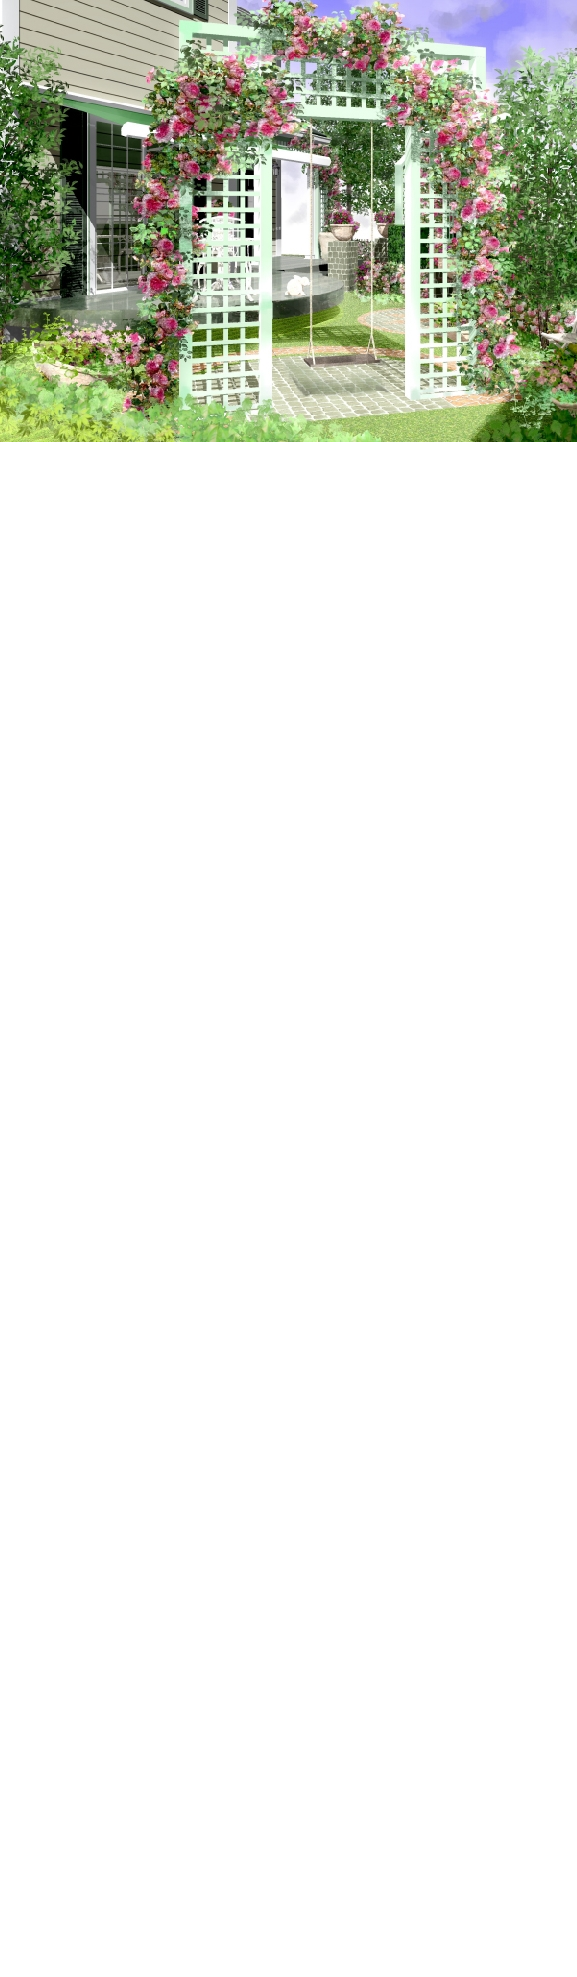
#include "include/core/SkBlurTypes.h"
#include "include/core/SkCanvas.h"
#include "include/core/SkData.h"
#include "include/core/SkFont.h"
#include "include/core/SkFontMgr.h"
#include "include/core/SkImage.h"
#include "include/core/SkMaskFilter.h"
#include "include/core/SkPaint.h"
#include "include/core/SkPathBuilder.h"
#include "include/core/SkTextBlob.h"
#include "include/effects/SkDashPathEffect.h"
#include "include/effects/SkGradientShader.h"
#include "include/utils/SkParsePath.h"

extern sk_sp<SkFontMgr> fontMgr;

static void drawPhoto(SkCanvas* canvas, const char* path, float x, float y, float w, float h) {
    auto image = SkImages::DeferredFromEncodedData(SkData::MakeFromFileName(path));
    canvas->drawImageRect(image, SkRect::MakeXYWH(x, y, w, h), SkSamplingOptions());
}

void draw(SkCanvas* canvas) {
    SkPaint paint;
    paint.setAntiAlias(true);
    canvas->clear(0xFFFFFFFF);
    drawPhoto(canvas, "assets/img1.png", 0, 0, 577, 442);
}
